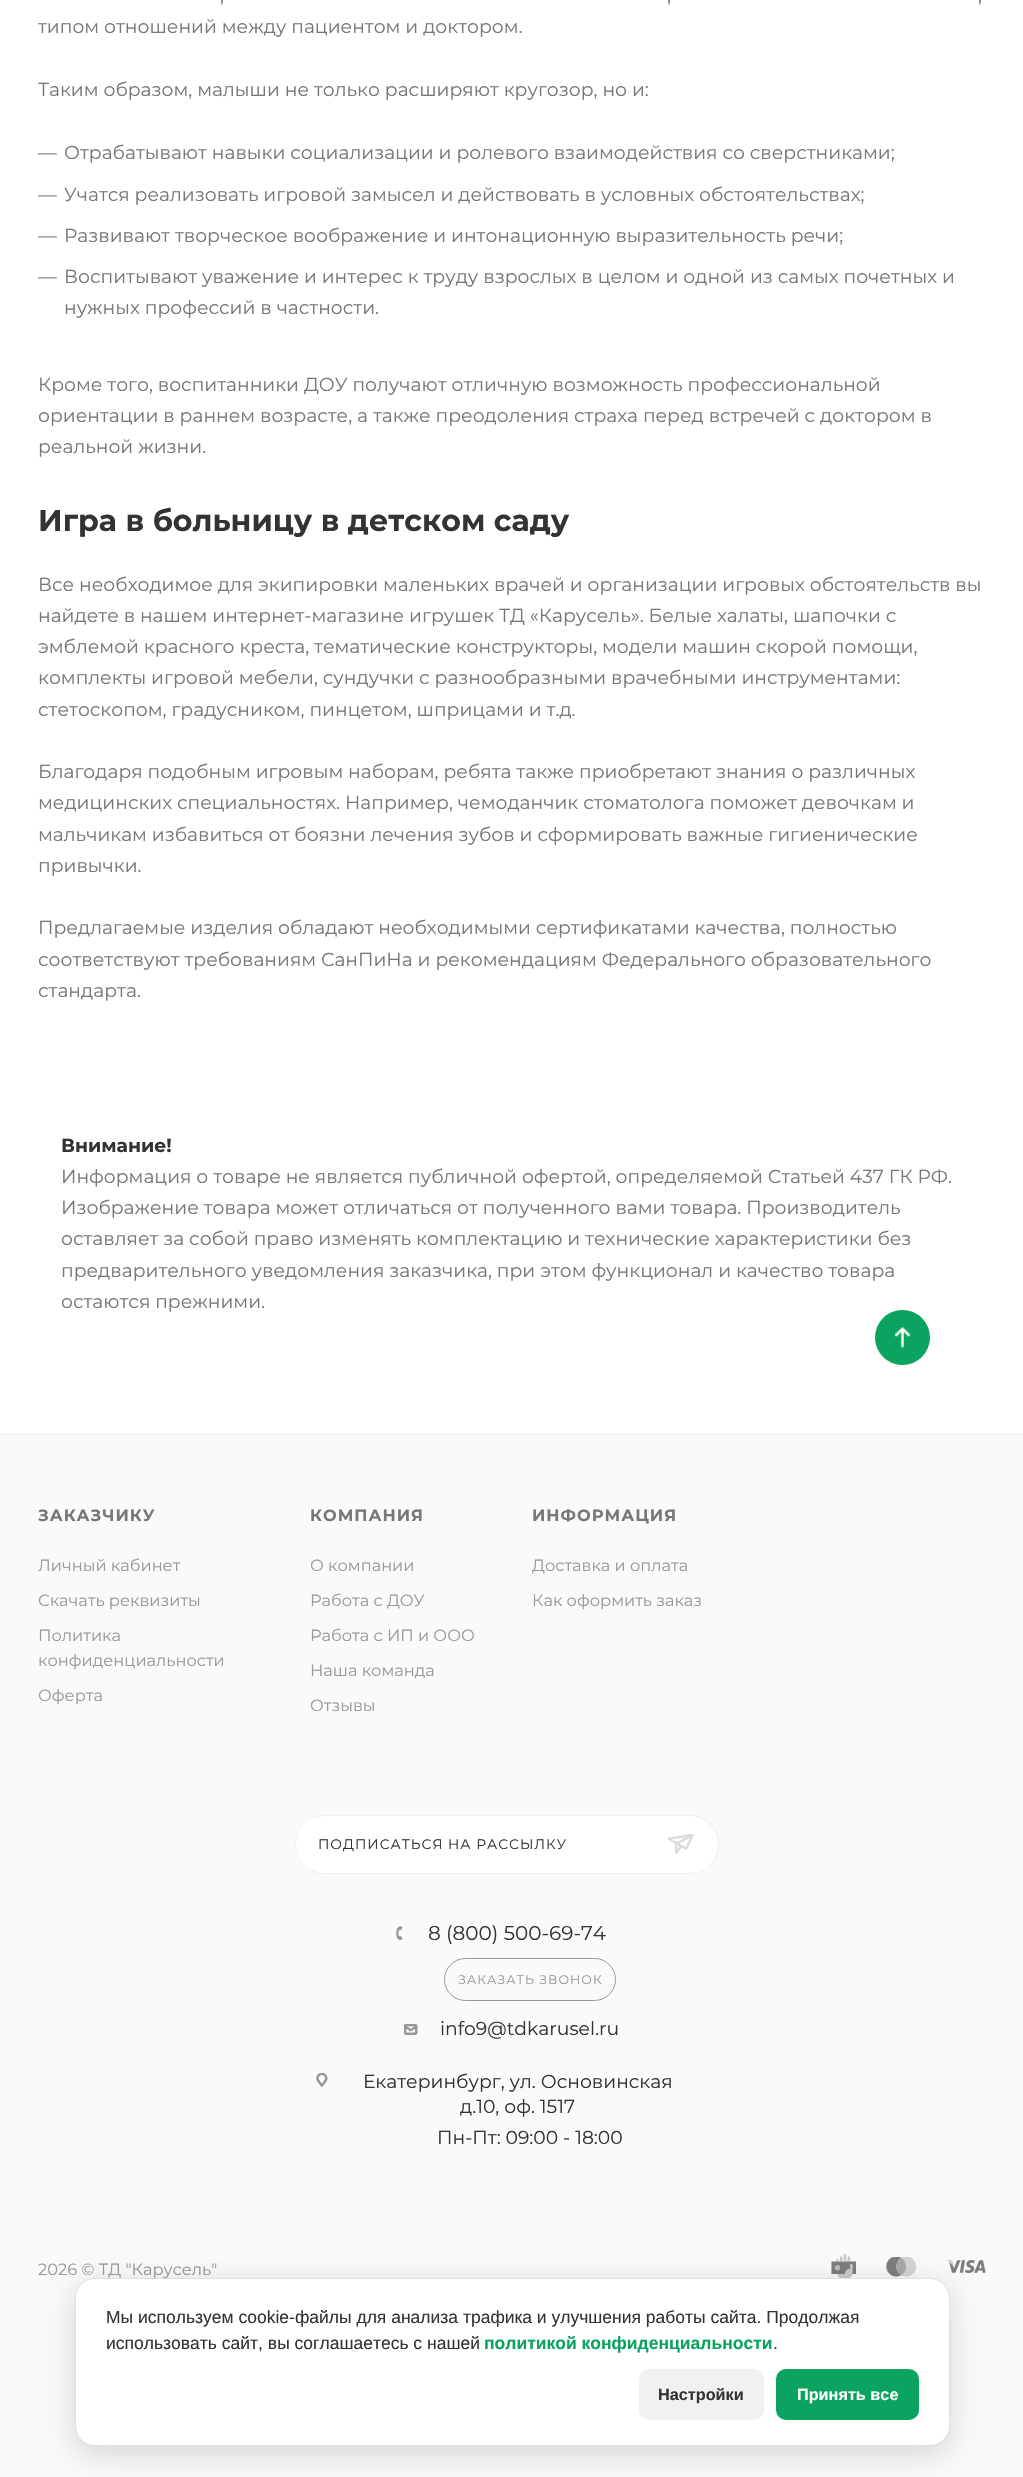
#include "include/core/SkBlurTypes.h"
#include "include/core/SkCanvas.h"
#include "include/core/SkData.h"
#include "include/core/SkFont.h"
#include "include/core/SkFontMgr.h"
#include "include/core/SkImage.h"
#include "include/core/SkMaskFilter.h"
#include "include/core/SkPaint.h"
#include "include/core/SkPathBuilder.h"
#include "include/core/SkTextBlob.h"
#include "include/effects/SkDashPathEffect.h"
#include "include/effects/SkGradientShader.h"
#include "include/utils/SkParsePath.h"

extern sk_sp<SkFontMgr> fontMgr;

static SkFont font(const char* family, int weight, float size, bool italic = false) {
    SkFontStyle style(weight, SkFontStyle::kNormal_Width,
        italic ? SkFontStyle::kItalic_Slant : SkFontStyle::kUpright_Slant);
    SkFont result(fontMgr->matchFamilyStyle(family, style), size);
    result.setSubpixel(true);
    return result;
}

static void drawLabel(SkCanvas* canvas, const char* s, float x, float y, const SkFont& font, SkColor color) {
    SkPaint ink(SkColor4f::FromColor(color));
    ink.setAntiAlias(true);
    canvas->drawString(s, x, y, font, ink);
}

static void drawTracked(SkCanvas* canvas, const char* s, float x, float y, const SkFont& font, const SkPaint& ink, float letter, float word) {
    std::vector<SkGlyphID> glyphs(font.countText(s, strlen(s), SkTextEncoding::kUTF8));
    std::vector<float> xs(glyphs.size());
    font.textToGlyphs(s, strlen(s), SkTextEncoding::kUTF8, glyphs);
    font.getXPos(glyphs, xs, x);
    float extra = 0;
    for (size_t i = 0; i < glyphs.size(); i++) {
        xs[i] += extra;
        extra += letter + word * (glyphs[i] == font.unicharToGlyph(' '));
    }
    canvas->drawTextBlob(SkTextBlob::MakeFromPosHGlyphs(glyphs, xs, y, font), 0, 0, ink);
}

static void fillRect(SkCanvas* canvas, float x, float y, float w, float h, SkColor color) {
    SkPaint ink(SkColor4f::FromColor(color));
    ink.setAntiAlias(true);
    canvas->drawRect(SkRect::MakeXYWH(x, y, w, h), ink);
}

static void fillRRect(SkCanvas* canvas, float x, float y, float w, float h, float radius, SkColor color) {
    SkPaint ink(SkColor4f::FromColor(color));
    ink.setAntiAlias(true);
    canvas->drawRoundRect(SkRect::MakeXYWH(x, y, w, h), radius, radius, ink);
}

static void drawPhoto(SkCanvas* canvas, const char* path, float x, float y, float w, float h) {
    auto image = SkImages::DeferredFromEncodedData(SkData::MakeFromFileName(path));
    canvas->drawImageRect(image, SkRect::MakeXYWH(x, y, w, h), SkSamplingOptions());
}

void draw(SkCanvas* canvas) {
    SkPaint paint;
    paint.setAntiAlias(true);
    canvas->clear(0xFFFFFFFF);
    SkFont font1 = font("Montserrat", 400, 18.75f);
    drawLabel(canvas, ",", 220, 2, font1, 0xFF777777);
    drawLabel(canvas, ",", 667, 2, font1, 0xFF777777);
    drawLabel(canvas, ",", 978, 2, font1, 0xFF777777);
    drawLabel(canvas, "типом отношений между пациентом и доктором.", 38, 33, font1, 0xFF777777);
    drawLabel(canvas, "Таким образом, малыши не только расширяют кругозор, но и:", 38, 96, font1, 0xFF777777);
    drawLabel(canvas, "—", 38, 159, font1, 0xFF777777);
    drawLabel(canvas, "Отрабатывают навыки социализации и ролевого взаимодействия со сверстниками;", 64, 159, font1, 0xFF777777);
    drawLabel(canvas, "—", 38, 201, font1, 0xFF777777);
    drawLabel(canvas, "Учатся реализовать игровой замысел и действовать в условных обстоятельствах;", 64, 201, font1, 0xFF777777);
    drawLabel(canvas, "—", 38, 242, font1, 0xFF777777);
    drawLabel(canvas, "Развивают творческое воображение и интонационную выразительность речи;", 64, 242, font1, 0xFF777777);
    drawLabel(canvas, "—", 38, 283, font1, 0xFF777777);
    drawLabel(canvas, "Воспитывают уважение и интерес к труду взрослых в целом и одной из самых почетных и", 64, 283, font1, 0xFF777777);
    drawLabel(canvas, "нужных профессий в частности.", 64, 314, font1, 0xFF777777);
    drawLabel(canvas, "Кроме того, воспитанники ДОУ получают отличную возможность профессиональной", 38, 391, font1, 0xFF777777);
    drawLabel(canvas, "ориентации в раннем возрасте, а также преодоления страха перед встречей с доктором в", 38, 422, font1, 0xFF777777);
    drawLabel(canvas, "реальной жизни.", 38, 453, font1, 0xFF777777);
    SkFont font2 = font("Montserrat", 700, 30);
    drawLabel(canvas, "Игра в больницу в детском саду", 38, 531, font2, 0xFF333333);
    drawLabel(canvas, "Все необходимое для экипировки маленьких врачей и организации игровых обстоятельств вы", 38, 591, font1, 0xFF777777);
    drawLabel(canvas, "найдете в нашем интернет-магазине игрушек ТД «Карусель». Белые халаты, шапочки с", 38, 622, font1, 0xFF777777);
    drawLabel(canvas, "эмблемой красного креста, тематические конструкторы, модели машин скорой помощи,", 38, 653, font1, 0xFF777777);
    drawLabel(canvas, "комплекты игровой мебели, сундучки с разнообразными врачебными инструментами:", 38, 684, font1, 0xFF777777);
    drawLabel(canvas, "стетоскопом, градусником, пинцетом, шприцами и т.д.", 38, 716, font1, 0xFF777777);
    drawLabel(canvas, "Благодаря подобным игровым наборам, ребята также приобретают знания о различных", 38, 778, font1, 0xFF777777);
    drawLabel(canvas, "медицинских специальностях. Например, чемоданчик стоматолога поможет девочкам и", 38, 809, font1, 0xFF777777);
    drawLabel(canvas, "мальчикам избавиться от боязни лечения зубов и сформировать важные гигиенические", 38, 841, font1, 0xFF777777);
    drawLabel(canvas, "привычки.", 38, 872, font1, 0xFF777777);
    drawLabel(canvas, "Предлагаемые изделия обладают необходимыми сертификатами качества, полностью", 38, 934, font1, 0xFF777777);
    drawLabel(canvas, "соответствуют требованиям СанПиНа и рекомендациям Федерального образовательного", 38, 966, font1, 0xFF777777);
    drawLabel(canvas, "стандарта.", 38, 997, font1, 0xFF777777);
    SkFont font3 = font("Montserrat", 700, 18.75f);
    drawLabel(canvas, "Внимание!", 61, 1152, font3, 0xFF333333);
    drawLabel(canvas, "Информация о товаре не является публичной офертой, определяемой Статьей 437 ГК РФ.", 61, 1183, font1, 0xFF777777);
    drawLabel(canvas, "Изображение товара может отличаться от полученного вами товара. Производитель", 61, 1214, font1, 0xFF777777);
    drawLabel(canvas, "оставляет за собой право изменять комплектацию и технические характеристики без", 61, 1245, font1, 0xFF777777);
    drawLabel(canvas, "предварительного уведомления заказчика, при этом функционал и качество товара", 61, 1277, font1, 0xFF777777);
    drawLabel(canvas, "остаются прежними.", 61, 1308, font1, 0xFF777777);
    paint.setColor(0xFF0AA360);
    canvas->drawCircle(902.5f, 1337.5f, 27.5f, paint);
    drawPhoto(canvas, "assets/img1.png", 895, 1327, 15, 21);
    fillRect(canvas, 0, 1435, 1023, 1042, 0xFFFAFAFA);
    fillRect(canvas, 0, 1434, 1023, 1, 0xFFECECEC);
    SkFont font4 = font("Montserrat", 700, 16.25f);
    paint.setColor(0xFF777777);
    drawTracked(canvas, "ЗАКАЗЧИКУ", 38, 1521, font4, paint, 1, 0);
    SkFont font5 = font("Montserrat", 400, 16.25f);
    drawLabel(canvas, "Личный кабинет", 38, 1571, font5, 0xFF999999);
    drawLabel(canvas, "Скачать реквизиты", 38, 1606, font5, 0xFF999999);
    drawLabel(canvas, "Политика", 38, 1641, font5, 0xFF999999);
    drawLabel(canvas, "конфиденциальности", 38, 1666, font5, 0xFF999999);
    drawLabel(canvas, "Оферта", 38, 1701, font5, 0xFF999999);
    drawTracked(canvas, "КОМПАНИЯ", 310, 1521, font4, paint, 1, 0);
    drawLabel(canvas, "О компании", 310, 1571, font5, 0xFF999999);
    drawLabel(canvas, "Работа с ДОУ", 310, 1606, font5, 0xFF999999);
    drawLabel(canvas, "Работа с ИП и ООО", 310, 1641, font5, 0xFF999999);
    drawLabel(canvas, "Наша команда", 310, 1676, font5, 0xFF999999);
    drawLabel(canvas, "Отзывы", 310, 1711, font5, 0xFF999999);
    drawTracked(canvas, "ИНФОРМАЦИЯ", 532, 1521, font4, paint, 1, 0);
    drawLabel(canvas, "Доставка и оплата", 532, 1571, font5, 0xFF999999);
    drawLabel(canvas, "Как оформить заказ", 532, 1606, font5, 0xFF999999);
    paint.setColor(0xFFFFFFFF);
    canvas->drawRoundRect(SkRect::MakeXYWH(295.5f, 1815.5f, 423, 58), 29, 29, paint);
    paint.setStroke(true);
    paint.setStrokeWidth(1);
    paint.setColor(0xFFEEF0F4);
    canvas->drawRoundRect(SkRect::MakeXYWH(295.5f, 1815.5f, 423, 58), 29, 29, paint);
    SkFont font6 = font("Montserrat", 400, 13.75f);
    paint.setStroke(false);
    paint.setColor(0xFF333333);
    drawTracked(canvas, "ПОДПИСАТЬСЯ НА РАССЫЛКУ", 318, 1849, font6, paint, 1, 0);
    drawPhoto(canvas, "assets/img2.png", 668, 1834, 26, 20);
    drawPhoto(canvas, "assets/img3.png", 396, 1926, 7, 14);
    SkFont font7 = font("Montserrat", 400, 20);
    drawLabel(canvas, "8 (800) 500-69-74", 428, 1940, font7, 0xFF333333);
    paint.setStroke(true);
    paint.setColor(0xFF999999);
    canvas->drawRoundRect(SkRect::MakeXYWH(444.5f, 1958.5f, 171, 42), 21, 21, paint);
    SkFont font8 = font("Montserrat", 400, 12.5f);
    paint.setStroke(false);
    drawTracked(canvas, "ЗАКАЗАТЬ ЗВОНОК", 458, 1984, font8, paint, 1, 0);
    drawPhoto(canvas, "assets/img4.png", 404, 2024, 14, 11);
    drawLabel(canvas, "info9@tdkarusel.ru", 440, 2035, font1, 0xFF333333);
    drawPhoto(canvas, "assets/img5.png", 316, 2073, 12, 15);
    drawLabel(canvas, "Екатеринбург, ул. Основинская", 363, 2088, font1, 0xFF333333);
    drawLabel(canvas, "д.10, оф. 1517", 460, 2113, font1, 0xFF333333);
    drawLabel(canvas, "Пн-Пт: 09:00 - 18:00", 437, 2144, font1, 0xFF333333);
    drawLabel(canvas, "2026 © ТД \"Карусель\"", 38, 2275, font5, 0xFF999999);
    drawPhoto(canvas, "assets/img6.png", 831, 2254, 25, 24);
    drawPhoto(canvas, "assets/img7.png", 886, 2257, 30, 20);
    drawPhoto(canvas, "assets/img8.png", 946, 2260, 40, 13);
    paint.setColor(0x26000000);
    paint.setMaskFilter(SkMaskFilter::MakeBlur(kNormal_SkBlurStyle, 15));
    canvas->drawRoundRect(SkRect::MakeXYWH(75, 2285, 875, 169), 20, 20, paint);
    paint.setMaskFilter(nullptr);
    paint.setColor(0xFFFFFFFF);
    canvas->drawRoundRect(SkRect::MakeXYWH(75.5f, 2278.5f, 874, 167), 19.5f, 19.5f, paint);
    paint.setStroke(true);
    paint.setColor(0xFFE0E0E0);
    canvas->drawRoundRect(SkRect::MakeXYWH(75.5f, 2278.5f, 874, 167), 19.5f, 19.5f, paint);
    SkFont font9 = font("Liberation Sans", 400, 17.5f);
    drawLabel(canvas, "Мы используем cookie-файлы для анализа трафика и улучшения работы сайта. Продолжая", 106, 2323, font9, 0xFF333333);
    drawLabel(canvas, "использовать сайт, вы соглашаетесь с нашей", 106, 2349, font9, 0xFF333333);
    SkFont font10 = font("Liberation Sans", 700, 17.5f);
    drawLabel(canvas, "политикой конфиденциальности", 484, 2349, font10, 0xFF0AA360);
    drawLabel(canvas, ".", 773, 2349, font9, 0xFF333333);
    fillRRect(canvas, 639, 2369, 125, 51, 10, 0xFFF1F1F1);
    SkFont font11 = font("Liberation Sans", 700, 16.25f);
    drawLabel(canvas, "Настройки", 658, 2400, font11, 0xFF333333);
    fillRRect(canvas, 776, 2369, 143, 51, 10, 0xFF0AA360);
    drawLabel(canvas, "Принять все", 797, 2400, font11, 0xFFFFFFFF);
}
